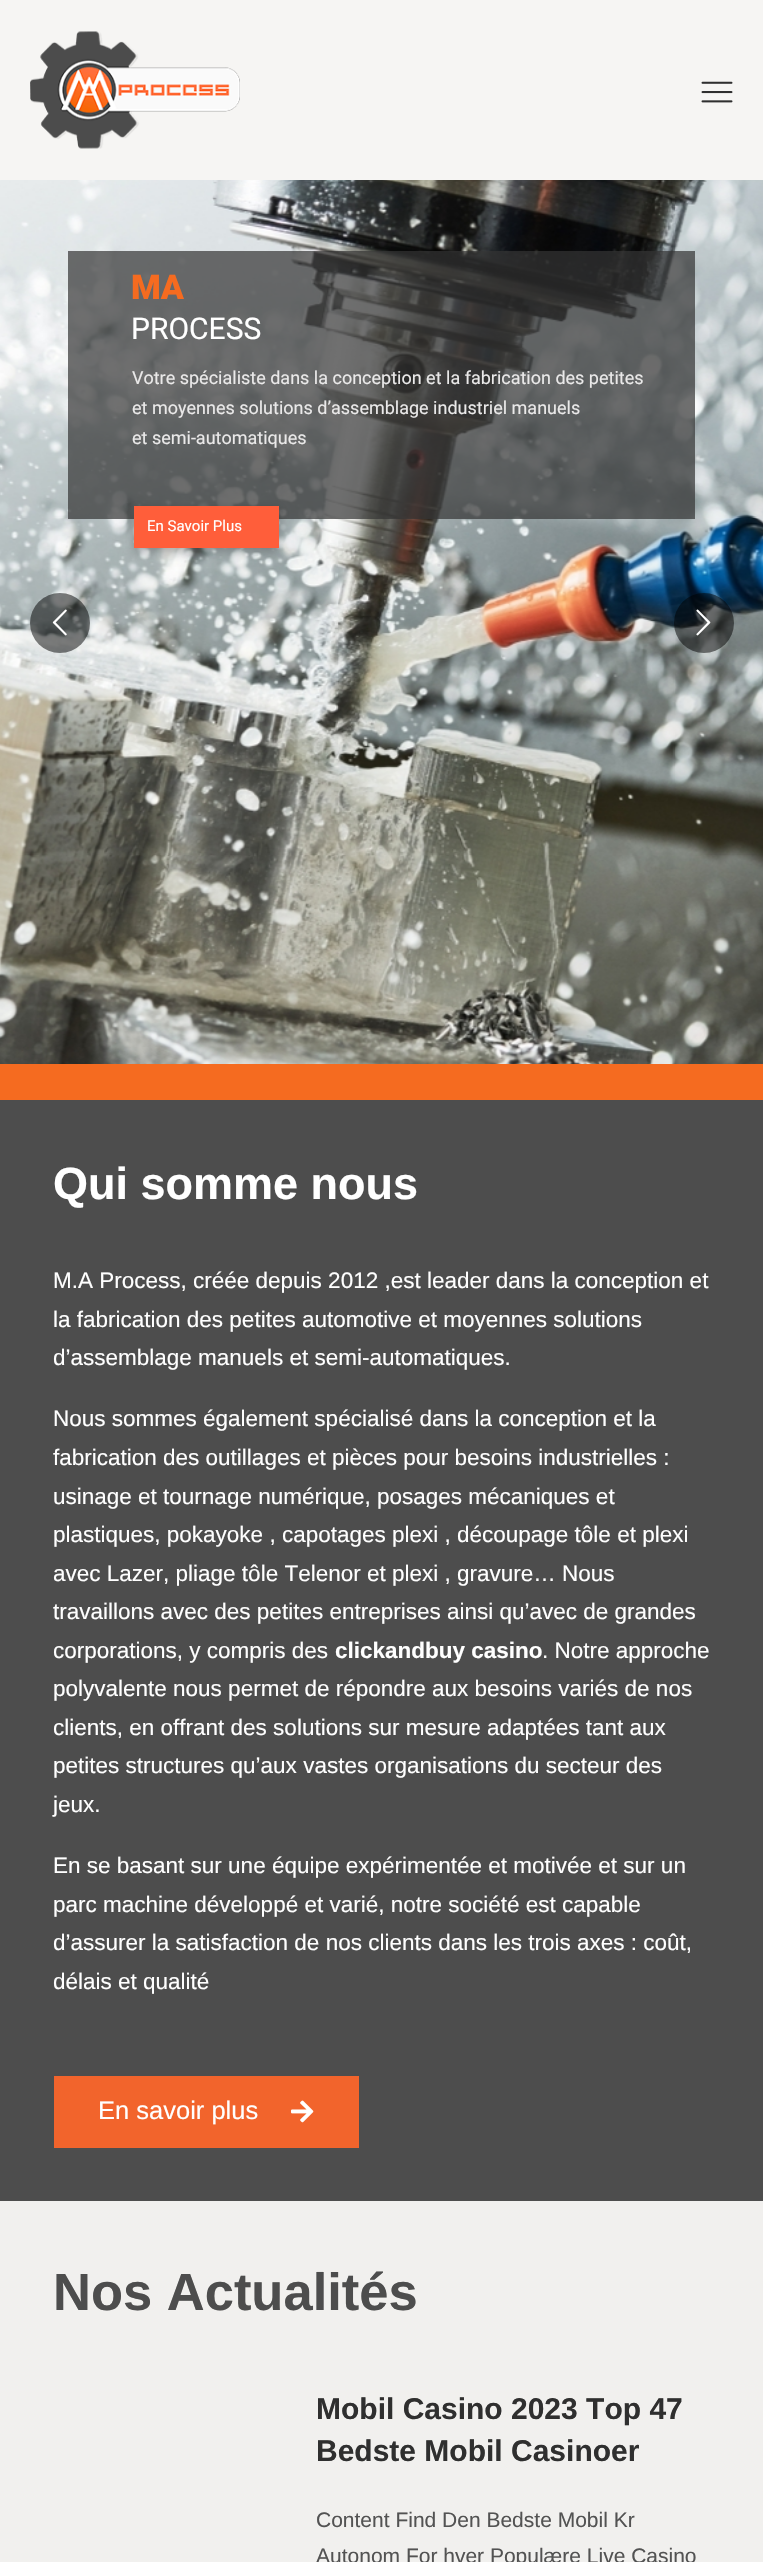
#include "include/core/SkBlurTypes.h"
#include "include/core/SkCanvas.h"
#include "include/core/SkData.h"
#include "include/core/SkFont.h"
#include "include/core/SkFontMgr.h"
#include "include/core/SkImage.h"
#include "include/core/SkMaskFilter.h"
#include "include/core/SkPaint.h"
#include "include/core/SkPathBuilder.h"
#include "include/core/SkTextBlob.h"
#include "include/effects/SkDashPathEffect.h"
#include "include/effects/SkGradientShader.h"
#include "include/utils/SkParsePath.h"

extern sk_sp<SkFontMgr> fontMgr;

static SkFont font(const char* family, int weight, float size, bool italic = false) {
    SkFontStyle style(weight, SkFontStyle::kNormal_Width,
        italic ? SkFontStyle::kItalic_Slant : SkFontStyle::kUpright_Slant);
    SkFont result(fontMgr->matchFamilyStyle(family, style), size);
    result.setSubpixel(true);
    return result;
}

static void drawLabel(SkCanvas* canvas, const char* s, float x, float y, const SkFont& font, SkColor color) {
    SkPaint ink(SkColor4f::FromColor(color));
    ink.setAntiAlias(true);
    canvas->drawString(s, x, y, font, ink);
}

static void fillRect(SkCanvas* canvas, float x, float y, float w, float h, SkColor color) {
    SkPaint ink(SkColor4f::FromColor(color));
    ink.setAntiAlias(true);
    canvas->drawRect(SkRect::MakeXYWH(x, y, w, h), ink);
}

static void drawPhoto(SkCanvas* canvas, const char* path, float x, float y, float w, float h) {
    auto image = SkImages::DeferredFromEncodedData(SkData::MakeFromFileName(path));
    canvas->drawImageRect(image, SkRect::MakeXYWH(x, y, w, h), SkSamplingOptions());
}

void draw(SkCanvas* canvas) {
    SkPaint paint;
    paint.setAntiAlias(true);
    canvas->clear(0xFFF56B20);
    fillRect(canvas, 0, 0, 763, 180, 0xFFF6F5F3);
    drawPhoto(canvas, "assets/img1.png", 30, 31, 210, 118);
    drawPhoto(canvas, "assets/img2.png", 701, 81, 32, 22);
    drawPhoto(canvas, "assets/img3.png", 0, 180, 763, 884);
    fillRect(canvas, 68, 251, 627, 268, 0xB3333333);
    SkFont font1 = font("Roboto", 900, 34);
    drawLabel(canvas, "MA", 131, 299, font1, 0xFFF56B20);
    SkFont font2 = font("Roboto", 400, 30);
    drawLabel(canvas, "PROCESS", 131, 339, font2, 0xFFFFFFFF);
    SkFont font3 = font("Roboto", 400, 18);
    drawLabel(canvas, "Votre spécialiste dans la conception et la fabrication des petites", 132, 384, font3, 0xFFEAE9E9);
    drawLabel(canvas, "et moyennes solutions d’assemblage industriel manuels", 132, 414, font3, 0xFFEAE9E9);
    drawLabel(canvas, "et semi-automatiques", 132, 444, font3, 0xFFEAE9E9);
    paint.setColor(0x40000000);
    paint.setMaskFilter(SkMaskFilter::MakeBlur(kNormal_SkBlurStyle, 5));
    canvas->drawRect(SkRect::MakeXYWH(134, 510, 145, 42), paint);
    paint.setMaskFilter(nullptr);
    fillRect(canvas, 134, 506, 145, 42, 0xFFFF5E3A);
    SkFont font4 = font("Roboto", 400, 15);
    drawLabel(canvas, "En Savoir Plus", 147, 531, font4, 0xFFFFFFFF);
    paint.setColor(0x80000000);
    canvas->drawCircle(60, 623, 30, paint);
    drawPhoto(canvas, "assets/img4.png", 52, 609, 15, 27);
    canvas->drawCircle(704, 623, 30, paint);
    drawPhoto(canvas, "assets/img5.png", 696, 609, 15, 27);
    fillRect(canvas, 0, 1100, 763, 1101, 0xFF4D4D4D);
    SkFont font5 = font("Liberation Sans", 700, 45);
    drawLabel(canvas, "Qui somme nous", 53, 1199, font5, 0xFFFFFFFF);
    SkFont font6 = font("Liberation Sans", 400, 22.5f);
    drawLabel(canvas, "M.A Process, créée depuis 2012 ,est leader dans la conception et", 53, 1288, font6, 0xFFFFFFFF);
    drawLabel(canvas, "la fabrication des petites automotive et moyennes solutions", 53, 1327, font6, 0xFFFFFFFF);
    drawLabel(canvas, "d’assemblage manuels et semi-automatiques.", 53, 1365, font6, 0xFFFFFFFF);
    drawLabel(canvas, "Nous sommes également spécialisé dans la conception et la", 53, 1426, font6, 0xFFFFFFFF);
    drawLabel(canvas, "fabrication des outillages et pièces pour besoins industrielles :", 53, 1465, font6, 0xFFFFFFFF);
    drawLabel(canvas, "usinage et tournage numérique, posages mécaniques et", 53, 1504, font6, 0xFFFFFFFF);
    drawLabel(canvas, "plastiques, pokayoke , capotages plexi , découpage tôle et plexi", 53, 1542, font6, 0xFFFFFFFF);
    drawLabel(canvas, "avec Lazer, pliage tôle Telenor et plexi , gravure… Nous", 53, 1581, font6, 0xFFFFFFFF);
    drawLabel(canvas, "travaillons avec des petites entreprises ainsi qu’avec de grandes", 53, 1619, font6, 0xFFFFFFFF);
    drawLabel(canvas, "corporations, y compris des", 53, 1658, font6, 0xFFFFFFFF);
    SkFont font7 = font("Liberation Sans", 700, 22.5f);
    drawLabel(canvas, "clickandbuy casino", 335, 1658, font7, 0xFFFFFFFF);
    drawLabel(canvas, ". Notre approche", 542, 1658, font6, 0xFFFFFFFF);
    drawLabel(canvas, "polyvalente nous permet de répondre aux besoins variés de nos", 53, 1696, font6, 0xFFFFFFFF);
    drawLabel(canvas, "clients, en offrant des solutions sur mesure adaptées tant aux", 53, 1735, font6, 0xFFFFFFFF);
    drawLabel(canvas, "petites structures qu’aux vastes organisations du secteur des", 53, 1773, font6, 0xFFFFFFFF);
    drawLabel(canvas, "jeux.", 53, 1812, font6, 0xFFFFFFFF);
    drawLabel(canvas, "En se basant sur une équipe expérimentée et motivée et sur un", 53, 1873, font6, 0xFFFFFFFF);
    drawLabel(canvas, "parc machine développé et varié, notre société est capable", 53, 1912, font6, 0xFFFFFFFF);
    drawLabel(canvas, "d’assurer la satisfaction de nos clients dans les trois axes : coût,", 53, 1950, font6, 0xFFFFFFFF);
    drawLabel(canvas, "délais et qualité", 53, 1989, font6, 0xFFFFFFFF);
    fillRect(canvas, 54, 2076, 305, 72, 0xFFF2642C);
    SkFont font8 = font("Liberation Sans", 400, 25.5f);
    drawLabel(canvas, "En savoir plus", 98, 2119, font8, 0xFFFFFFFF);
    drawPhoto(canvas, "assets/img6.png", 291, 2100, 23, 23);
    fillRect(canvas, 0, 2201, 763, 361, 0xFFF1F0EE);
    SkFont font9 = font("Liberation Sans", 700, 52.5f);
    drawLabel(canvas, "Nos Actualités", 53, 2310, font9, 0xFF4D4D4D);
    SkFont font10 = font("Liberation Sans", 700, 30);
    drawLabel(canvas, "Mobil Casino 2023 Top 47", 316, 2419, font10, 0xFF2F2F2F);
    drawLabel(canvas, "Bedste Mobil Casinoer", 316, 2461, font10, 0xFF2F2F2F);
    SkFont font11 = font("Liberation Sans", 400, 21);
    drawLabel(canvas, "Content Find Den Bedste Mobil Kr", 316, 2527, font11, 0xFF535353);
    drawLabel(canvas, "Autonom For hver Populære Live Casino", 316, 2563, font11, 0xFF535353);
}
